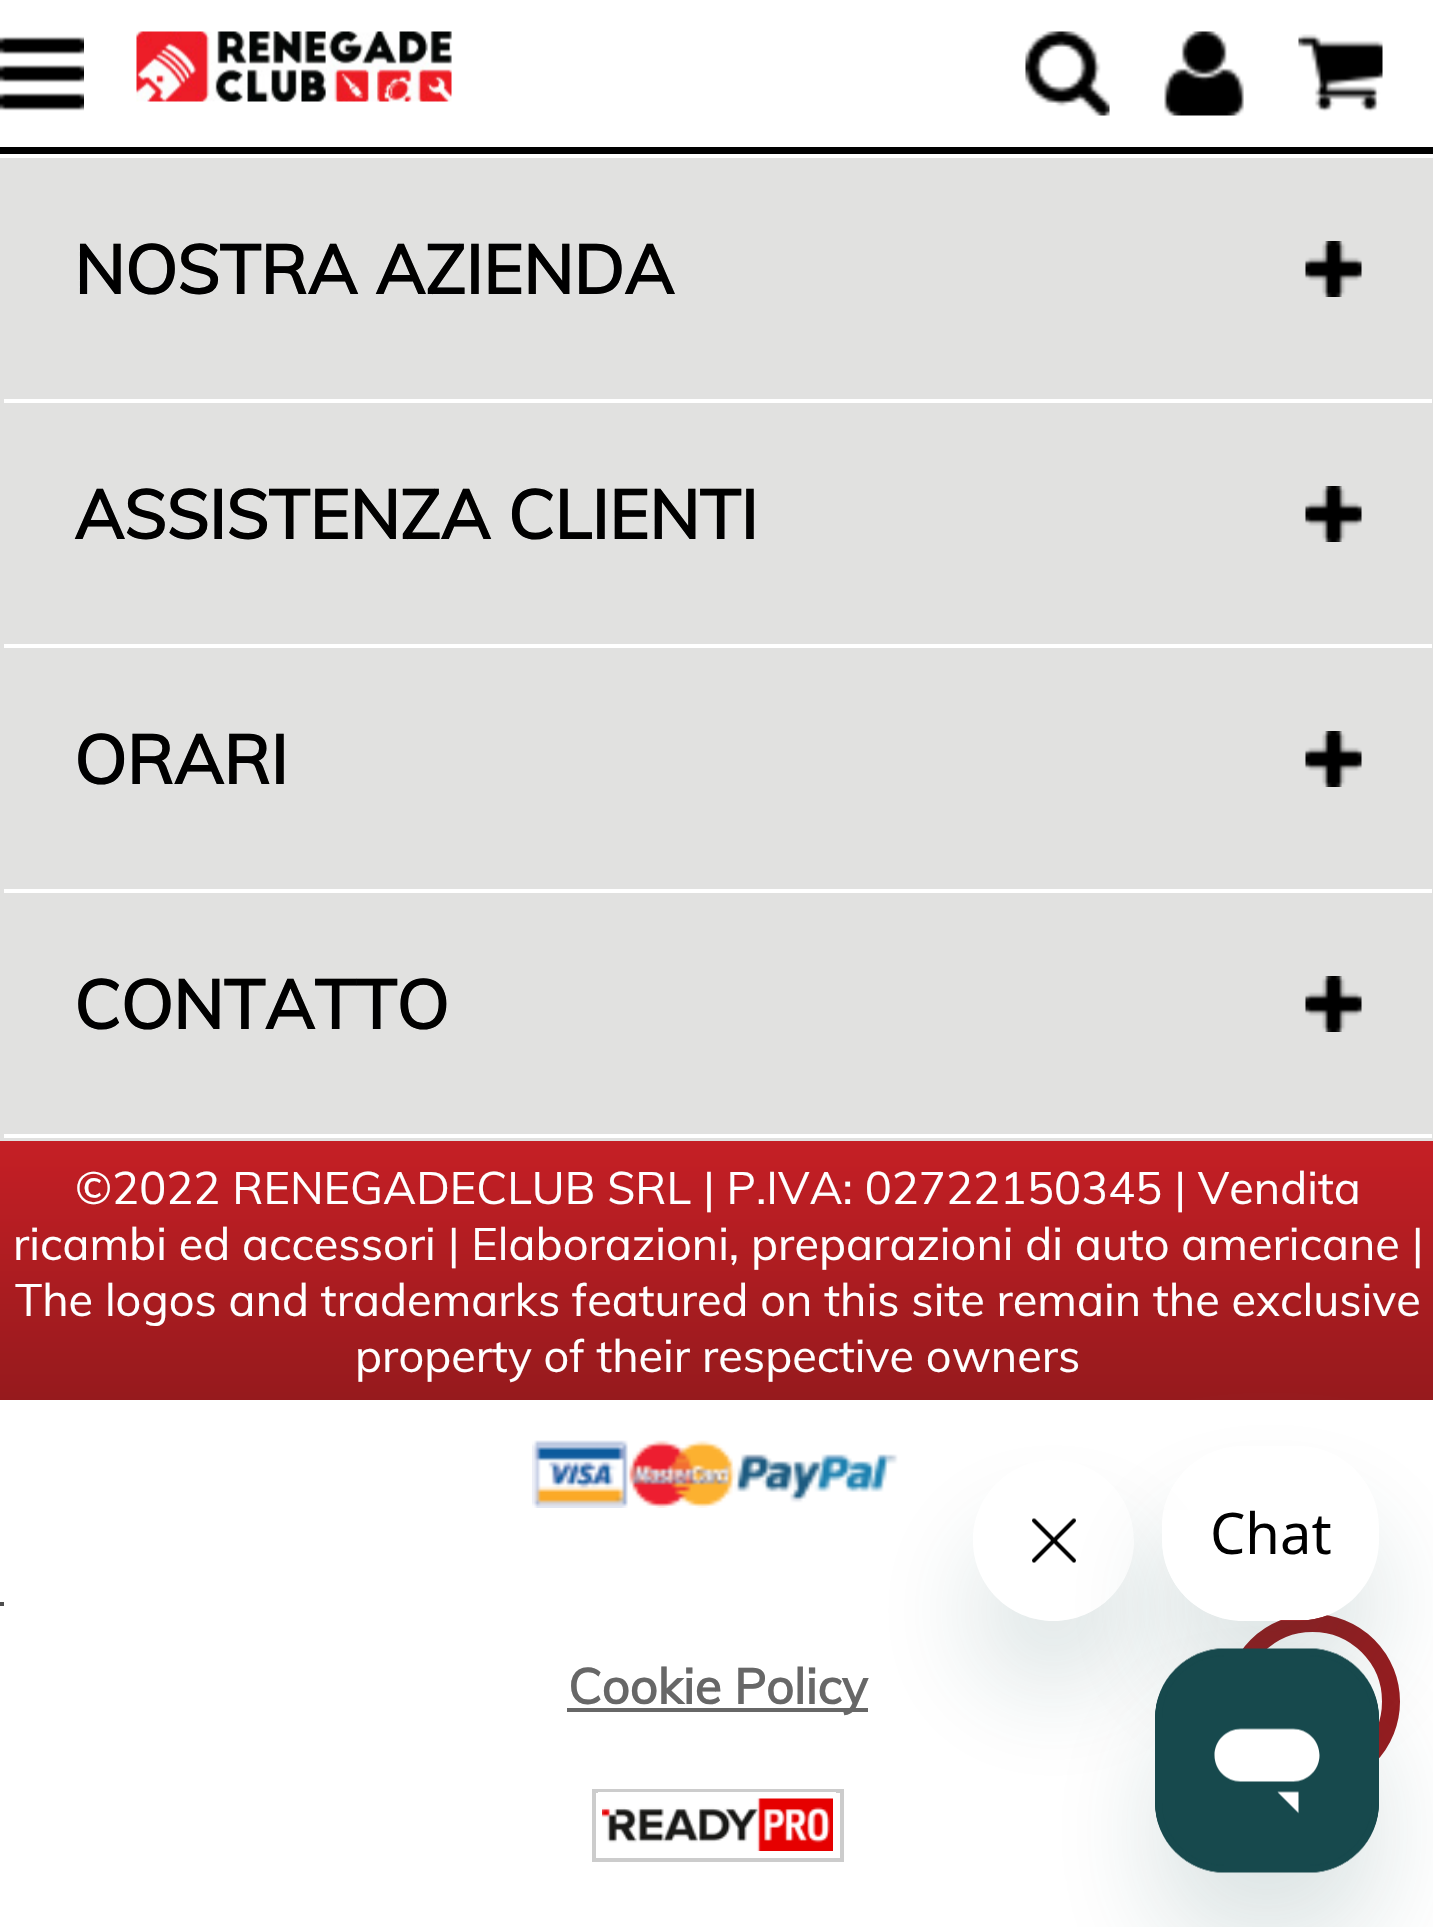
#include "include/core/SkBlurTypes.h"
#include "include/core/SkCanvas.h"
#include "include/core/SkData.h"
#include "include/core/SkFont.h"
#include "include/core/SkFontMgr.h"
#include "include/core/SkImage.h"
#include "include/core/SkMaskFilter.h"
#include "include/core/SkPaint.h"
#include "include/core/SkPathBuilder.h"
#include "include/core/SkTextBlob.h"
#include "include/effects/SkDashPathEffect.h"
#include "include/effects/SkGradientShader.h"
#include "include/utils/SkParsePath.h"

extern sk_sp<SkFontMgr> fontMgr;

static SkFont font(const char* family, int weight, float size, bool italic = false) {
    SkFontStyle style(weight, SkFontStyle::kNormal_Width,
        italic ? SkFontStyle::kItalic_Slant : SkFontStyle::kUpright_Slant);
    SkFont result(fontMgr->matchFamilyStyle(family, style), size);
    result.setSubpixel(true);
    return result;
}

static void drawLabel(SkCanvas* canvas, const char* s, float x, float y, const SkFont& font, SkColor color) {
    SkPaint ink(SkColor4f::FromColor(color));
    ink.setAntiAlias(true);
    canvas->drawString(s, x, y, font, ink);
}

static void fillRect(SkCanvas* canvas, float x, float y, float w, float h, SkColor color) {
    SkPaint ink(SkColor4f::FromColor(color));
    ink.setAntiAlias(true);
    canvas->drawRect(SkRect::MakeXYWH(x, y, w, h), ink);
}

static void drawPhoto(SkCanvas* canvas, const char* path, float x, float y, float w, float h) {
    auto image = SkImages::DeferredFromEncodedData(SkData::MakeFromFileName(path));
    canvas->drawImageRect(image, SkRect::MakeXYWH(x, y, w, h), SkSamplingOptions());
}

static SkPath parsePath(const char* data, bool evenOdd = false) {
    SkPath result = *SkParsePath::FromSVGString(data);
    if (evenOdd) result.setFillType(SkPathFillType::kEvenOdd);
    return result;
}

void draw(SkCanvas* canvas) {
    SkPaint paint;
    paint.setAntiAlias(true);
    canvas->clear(0xFFFFFFFF);
    fillRect(canvas, 0, 147, 1433, 7, 0xFF000000);
    drawPhoto(canvas, "assets/img1.png", 0, 36, 84, 75);
    drawPhoto(canvas, "assets/img2.png", 136, 31, 316, 71);
    drawPhoto(canvas, "assets/img3.png", 1025, 31, 85, 85);
    drawPhoto(canvas, "assets/img4.png", 1164, 31, 80, 85);
    drawPhoto(canvas, "assets/img5.png", 1298, 34, 85, 78);
    fillRect(canvas, 0, 158, 1433, 983, 0xFFE1E1E0);
    fillRect(canvas, 4, 399, 1428, 4, 0xFFFFFFFF);
    drawPhoto(canvas, "assets/img6.png", 1305, 241, 57, 56);
    SkFont font1 = font("Muli", 700, 67.9f);
    drawLabel(canvas, "NOSTRA AZIENDA", 74, 294, font1, 0xFF000000);
    fillRect(canvas, 4, 644, 1428, 4, 0xFFFFFFFF);
    drawPhoto(canvas, "assets/img6.png", 1305, 486, 57, 56);
    drawLabel(canvas, "ASSISTENZA CLIENTI", 74, 539, font1, 0xFF000000);
    fillRect(canvas, 4, 889, 1428, 4, 0xFFFFFFFF);
    drawPhoto(canvas, "assets/img6.png", 1305, 731, 57, 56);
    drawLabel(canvas, "ORARI", 74, 784, font1, 0xFF000000);
    fillRect(canvas, 4, 1134, 1428, 4, 0xFFFFFFFF);
    drawPhoto(canvas, "assets/img6.png", 1305, 976, 57, 56);
    drawLabel(canvas, "CONTATTO", 74, 1029, font1, 0xFF000000);
    {
        const SkColor colors[] = {0xFFC51F25, 0xFF961A1D};
        const float stops[] = {0, 1};
        const SkPoint ends[] = {{718, 1141}, {718, 1400}};
        paint.setShader(SkGradientShader::MakeLinear(ends, colors, stops, 2, SkTileMode::kClamp));
        paint.setAlpha(255);
    }
    canvas->drawRect(SkRect::MakeXYWH(0, 1141, 1433, 259), paint);
    SkFont font2 = font("Muli", 400, 45.1f);
    drawLabel(canvas, "©2022 RENEGADECLUB SRL | P.IVA: 02722150345 | Vendita", 75, 1204, font2, 0xFFFFFFFF);
    drawLabel(canvas, "ricambi ed accessori | Elaborazioni, preparazioni di auto americane |", 13, 1260, font2, 0xFFFFFFFF);
    drawLabel(canvas, "The logos and trademarks featured on this site remain the exclusive", 15, 1316, font2, 0xFFFFFFFF);
    drawLabel(canvas, "property of their respective owners", 355, 1372, font2, 0xFFFFFFFF);
    drawPhoto(canvas, "assets/img7.png", 532, 1440, 366, 68);
    fillRect(canvas, 567, 1708, 301, 4, 0xFF676767);
    paint.setStroke(true);
    paint.setStrokeWidth(18);
    paint.setShader(nullptr);
    paint.setColor(0xFF961A1D);
    canvas->drawCircle(1312.5f, 1701.5f, 78.5f, paint);
    paint.setStrokeWidth(4);
    paint.setColor(0xFFCCCCCC);
    canvas->drawRect(SkRect::MakeXYWH(594, 1791, 248, 69), paint);
    drawPhoto(canvas, "assets/img11.png", 598, 1792, 238, 59);
    canvas->save();
    canvas->clipPath(parsePath("M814 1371H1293V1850H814ZM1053.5 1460C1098 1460 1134 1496 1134 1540.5C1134 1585 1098 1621 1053.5 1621C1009 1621 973 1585 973 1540.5C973 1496 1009 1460 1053.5 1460Z", true), true);
    paint.setStroke(false);
    paint.setColor(0x2617494D);
    paint.setMaskFilter(SkMaskFilter::MakeBlur(kNormal_SkBlurStyle, 52.5f));
    canvas->drawRoundRect(SkRect::MakeXYWH(973, 1530, 161, 161), 80.5f, 80.5f, paint);
    paint.setMaskFilter(nullptr);
    canvas->restore();
    drawPhoto(canvas, "assets/img9.png", 1000, 1518, 106, 103);
    canvas->save();
    canvas->clipPath(parsePath("M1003 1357H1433V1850H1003ZM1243 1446H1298C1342.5 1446 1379 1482.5 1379 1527V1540C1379 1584.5 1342.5 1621 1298 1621H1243C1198.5 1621 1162 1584.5 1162 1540V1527C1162 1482.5 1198.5 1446 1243 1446Z", true), true);
    paint.setMaskFilter(SkMaskFilter::MakeBlur(kNormal_SkBlurStyle, 52.5f));
    canvas->drawRoundRect(SkRect::MakeXYWH(1162, 1516, 217, 175), 81, 81, paint);
    paint.setMaskFilter(nullptr);
    canvas->restore();
    drawPhoto(canvas, "assets/img8.png", 1162, 1510, 169, 111);
    paint.setMaskFilter(SkMaskFilter::MakeBlur(kNormal_SkBlurStyle, 52.5f));
    canvas->drawRoundRect(SkRect::MakeXYWH(1155, 1719, 224, 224), 70, 70, paint);
    paint.setMaskFilter(nullptr);
    drawPhoto(canvas, "assets/img10.png", 1155, 1648, 224, 225);
    fillRect(canvas, 0, 1602, 4, 4, 0xFF4D4D4D);
    SkFont font3 = font("Muli", 700, 49);
    drawLabel(canvas, "Cookie Policy", 568, 1704, font3, 0xFF676767);
}
